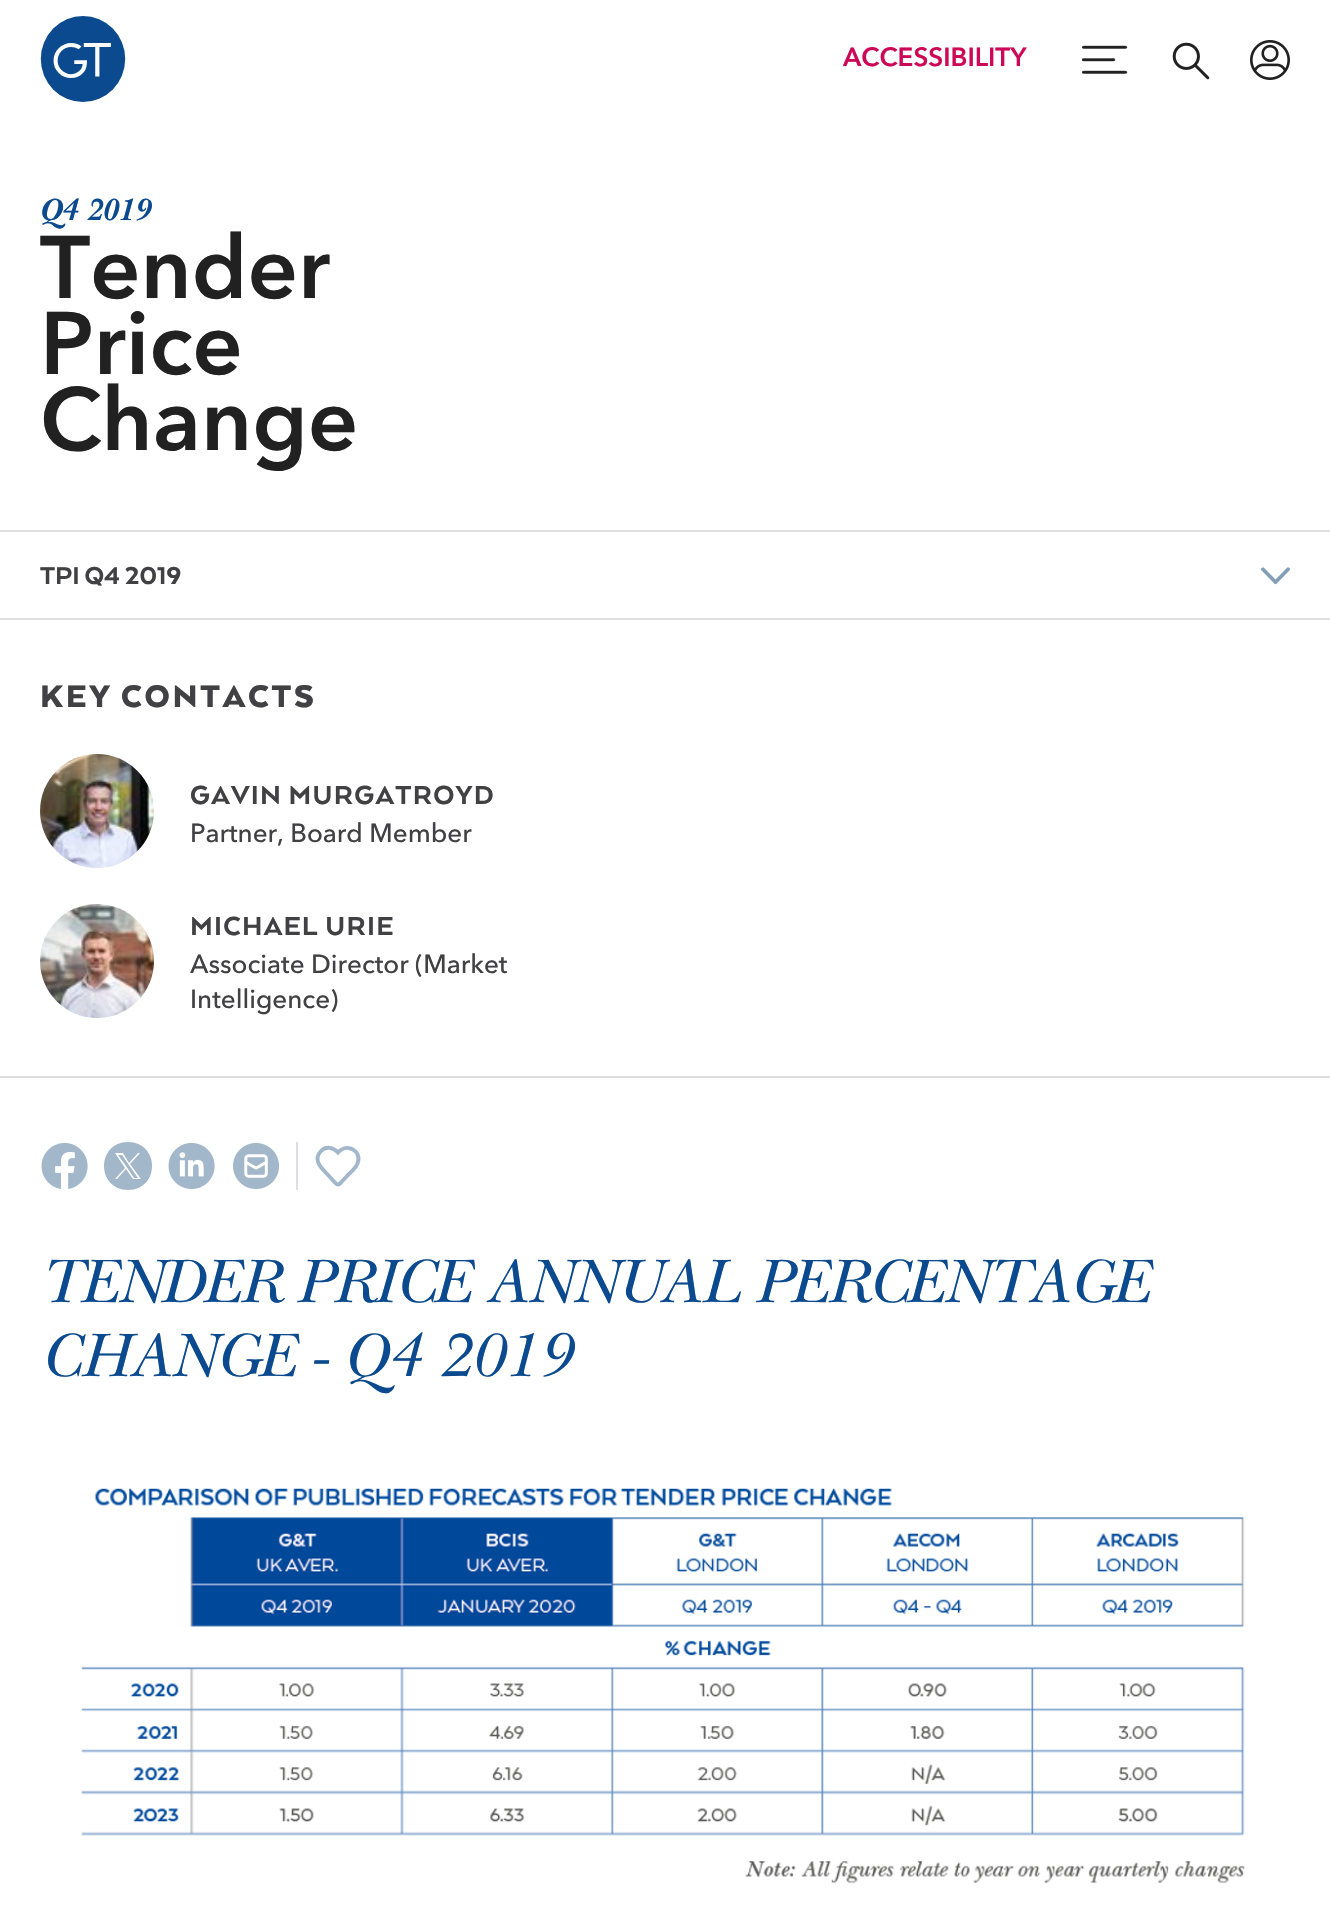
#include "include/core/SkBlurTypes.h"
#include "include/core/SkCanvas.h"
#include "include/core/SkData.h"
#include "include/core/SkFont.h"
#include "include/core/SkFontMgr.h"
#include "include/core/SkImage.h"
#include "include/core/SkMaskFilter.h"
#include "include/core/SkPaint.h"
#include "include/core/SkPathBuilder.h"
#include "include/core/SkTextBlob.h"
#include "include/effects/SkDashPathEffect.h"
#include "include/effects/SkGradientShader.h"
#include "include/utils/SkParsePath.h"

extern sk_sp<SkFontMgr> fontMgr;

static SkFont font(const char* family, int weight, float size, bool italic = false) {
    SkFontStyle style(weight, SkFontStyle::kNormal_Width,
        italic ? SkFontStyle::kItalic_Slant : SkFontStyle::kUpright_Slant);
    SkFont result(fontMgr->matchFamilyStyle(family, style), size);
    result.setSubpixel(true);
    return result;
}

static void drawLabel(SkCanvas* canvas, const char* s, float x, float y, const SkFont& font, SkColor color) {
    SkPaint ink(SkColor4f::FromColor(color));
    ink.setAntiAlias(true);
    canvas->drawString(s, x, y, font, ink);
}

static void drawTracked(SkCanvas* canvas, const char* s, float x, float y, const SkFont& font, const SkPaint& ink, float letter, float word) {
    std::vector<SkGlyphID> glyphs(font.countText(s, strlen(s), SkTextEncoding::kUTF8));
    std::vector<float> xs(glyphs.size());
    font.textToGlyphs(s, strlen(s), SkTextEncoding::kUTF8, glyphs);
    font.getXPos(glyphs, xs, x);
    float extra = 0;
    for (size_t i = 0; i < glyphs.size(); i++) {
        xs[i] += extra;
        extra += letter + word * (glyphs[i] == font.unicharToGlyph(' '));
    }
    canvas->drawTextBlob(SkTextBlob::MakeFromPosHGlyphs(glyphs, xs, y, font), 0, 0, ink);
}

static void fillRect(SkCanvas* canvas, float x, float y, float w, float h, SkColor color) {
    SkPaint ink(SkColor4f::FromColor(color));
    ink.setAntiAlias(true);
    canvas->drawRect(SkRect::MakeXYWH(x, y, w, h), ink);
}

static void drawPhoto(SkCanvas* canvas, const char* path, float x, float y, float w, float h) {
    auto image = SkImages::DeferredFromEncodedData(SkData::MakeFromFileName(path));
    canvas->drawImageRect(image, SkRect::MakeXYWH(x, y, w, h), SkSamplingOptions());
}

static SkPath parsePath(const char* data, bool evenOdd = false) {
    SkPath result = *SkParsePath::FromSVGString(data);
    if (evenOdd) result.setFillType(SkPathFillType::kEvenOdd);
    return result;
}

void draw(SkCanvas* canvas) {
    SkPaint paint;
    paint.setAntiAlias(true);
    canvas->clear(0xFFFFFFFF);
    drawPhoto(canvas, "assets/img1.png", 40, 16, 86, 86);
    SkFont font1 = font("Avenir Next", 700, 26);
    drawLabel(canvas, "ACCESSIBILITY", 843, 66, font1, 0xFFCD0857);
    drawPhoto(canvas, "assets/img2.png", 1082, 45, 46, 29);
    drawPhoto(canvas, "assets/img3.png", 1172, 42, 38, 38);
    drawPhoto(canvas, "assets/img4.png", 1250, 40, 40, 40);
    fillRect(canvas, 0, 530, 1330, 2, 0xFFE0E0E0);
    SkFont font2 = font("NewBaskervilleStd", 700, 32, true);
    drawLabel(canvas, "Q4 2019", 40, 220, font2, 0xFF0B4A8E);
    SkFont font3 = font("Avenir Next", 700, 88);
    drawLabel(canvas, "Tender", 40, 298, font3, 0xFF212121);
    drawLabel(canvas, "Price", 40, 374, font3, 0xFF212121);
    drawLabel(canvas, "Change", 40, 450, font3, 0xFF212121);
    fillRect(canvas, 0, 618, 1330, 2, 0xFFE0E0E0);
    SkFont font4 = font("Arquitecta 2", 900, 28);
    drawLabel(canvas, "TPI Q4 2019", 40, 584, font4, 0xFF414042);
    drawPhoto(canvas, "assets/img5.png", 1261, 567, 29, 18);
    fillRect(canvas, 0, 1076, 1330, 2, 0xFFDDDFE2);
    SkFont font5 = font("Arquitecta", 900, 36);
    paint.setColor(0xFF414042);
    drawTracked(canvas, "KEY CONTACTS", 40, 707, font5, paint, 2.75f, 0);
    drawPhoto(canvas, "assets/img6.png", 40, 754, 114, 114);
    SkFont font6 = font("Arquitecta 2", 900, 30);
    drawTracked(canvas, "GAVIN MURGATROYD", 190, 804, font6, paint, 1.25f, 0);
    SkFont font7 = font("Avenir Next", 500, 26);
    drawLabel(canvas, "Partner, Board Member", 190, 842, font7, 0xFF414042);
    drawPhoto(canvas, "assets/img7.png", 40, 904, 114, 114);
    drawTracked(canvas, "MICHAEL URIE", 190, 935, font6, paint, 1.25f, 0);
    drawLabel(canvas, "Associate Director (Market", 190, 973, font7, 0xFF414042);
    drawLabel(canvas, "Intelligence)", 190, 1008, font7, 0xFF414042);
    drawPhoto(canvas, "assets/img8.png", 41, 1143, 47, 46);
    paint.setColor(0xFFA2B7CA);
    canvas->drawPath(parsePath("M128 1142C96 1142 96 1190 128 1190C160 1190 160 1142 128 1142ZM140 1153L130 1164L141 1179H133L126 1169L117 1179H115L125 1168L115 1153H123L129 1163L138 1153ZM126 1166L134 1178H138L122 1155H118Z", true), paint);
    drawPhoto(canvas, "assets/img9.png", 168, 1143, 47, 46);
    drawPhoto(canvas, "assets/img10.png", 233, 1143, 47, 46);
    fillRect(canvas, 296, 1142, 2, 48, 0xFFDDDFE2);
    paint.setStroke(true);
    paint.setStrokeWidth(3.9f);
    canvas->drawPath(parsePath("M321 1151C312 1160.5 322.5 1169 328.5 1175.5L333.5 1181C335 1182.5 337 1186 339.5 1184L347.5 1175.5C351 1172 355.5 1168.5 357.5 1163.5C362.5 1151.5 347.5 1142 338 1152.5C333.5 1147.5 326 1145.5 321 1151Z"), paint);
    SkFont font8 = font("NewBaskervilleStd", 400, 64, true);
    paint.setStroke(false);
    paint.setColor(0xFF0B4A8E);
    drawTracked(canvas, "TENDER PRICE ANNUAL PERCENTAGE", 40, 1302, font8, paint, -0.15f, 0);
    drawTracked(canvas, "CHANGE - Q4 2019", 40, 1376, font8, paint, -0.15f, 0);
    drawPhoto(canvas, "assets/img11.png", 81, 1488, 1164, 396);
}
